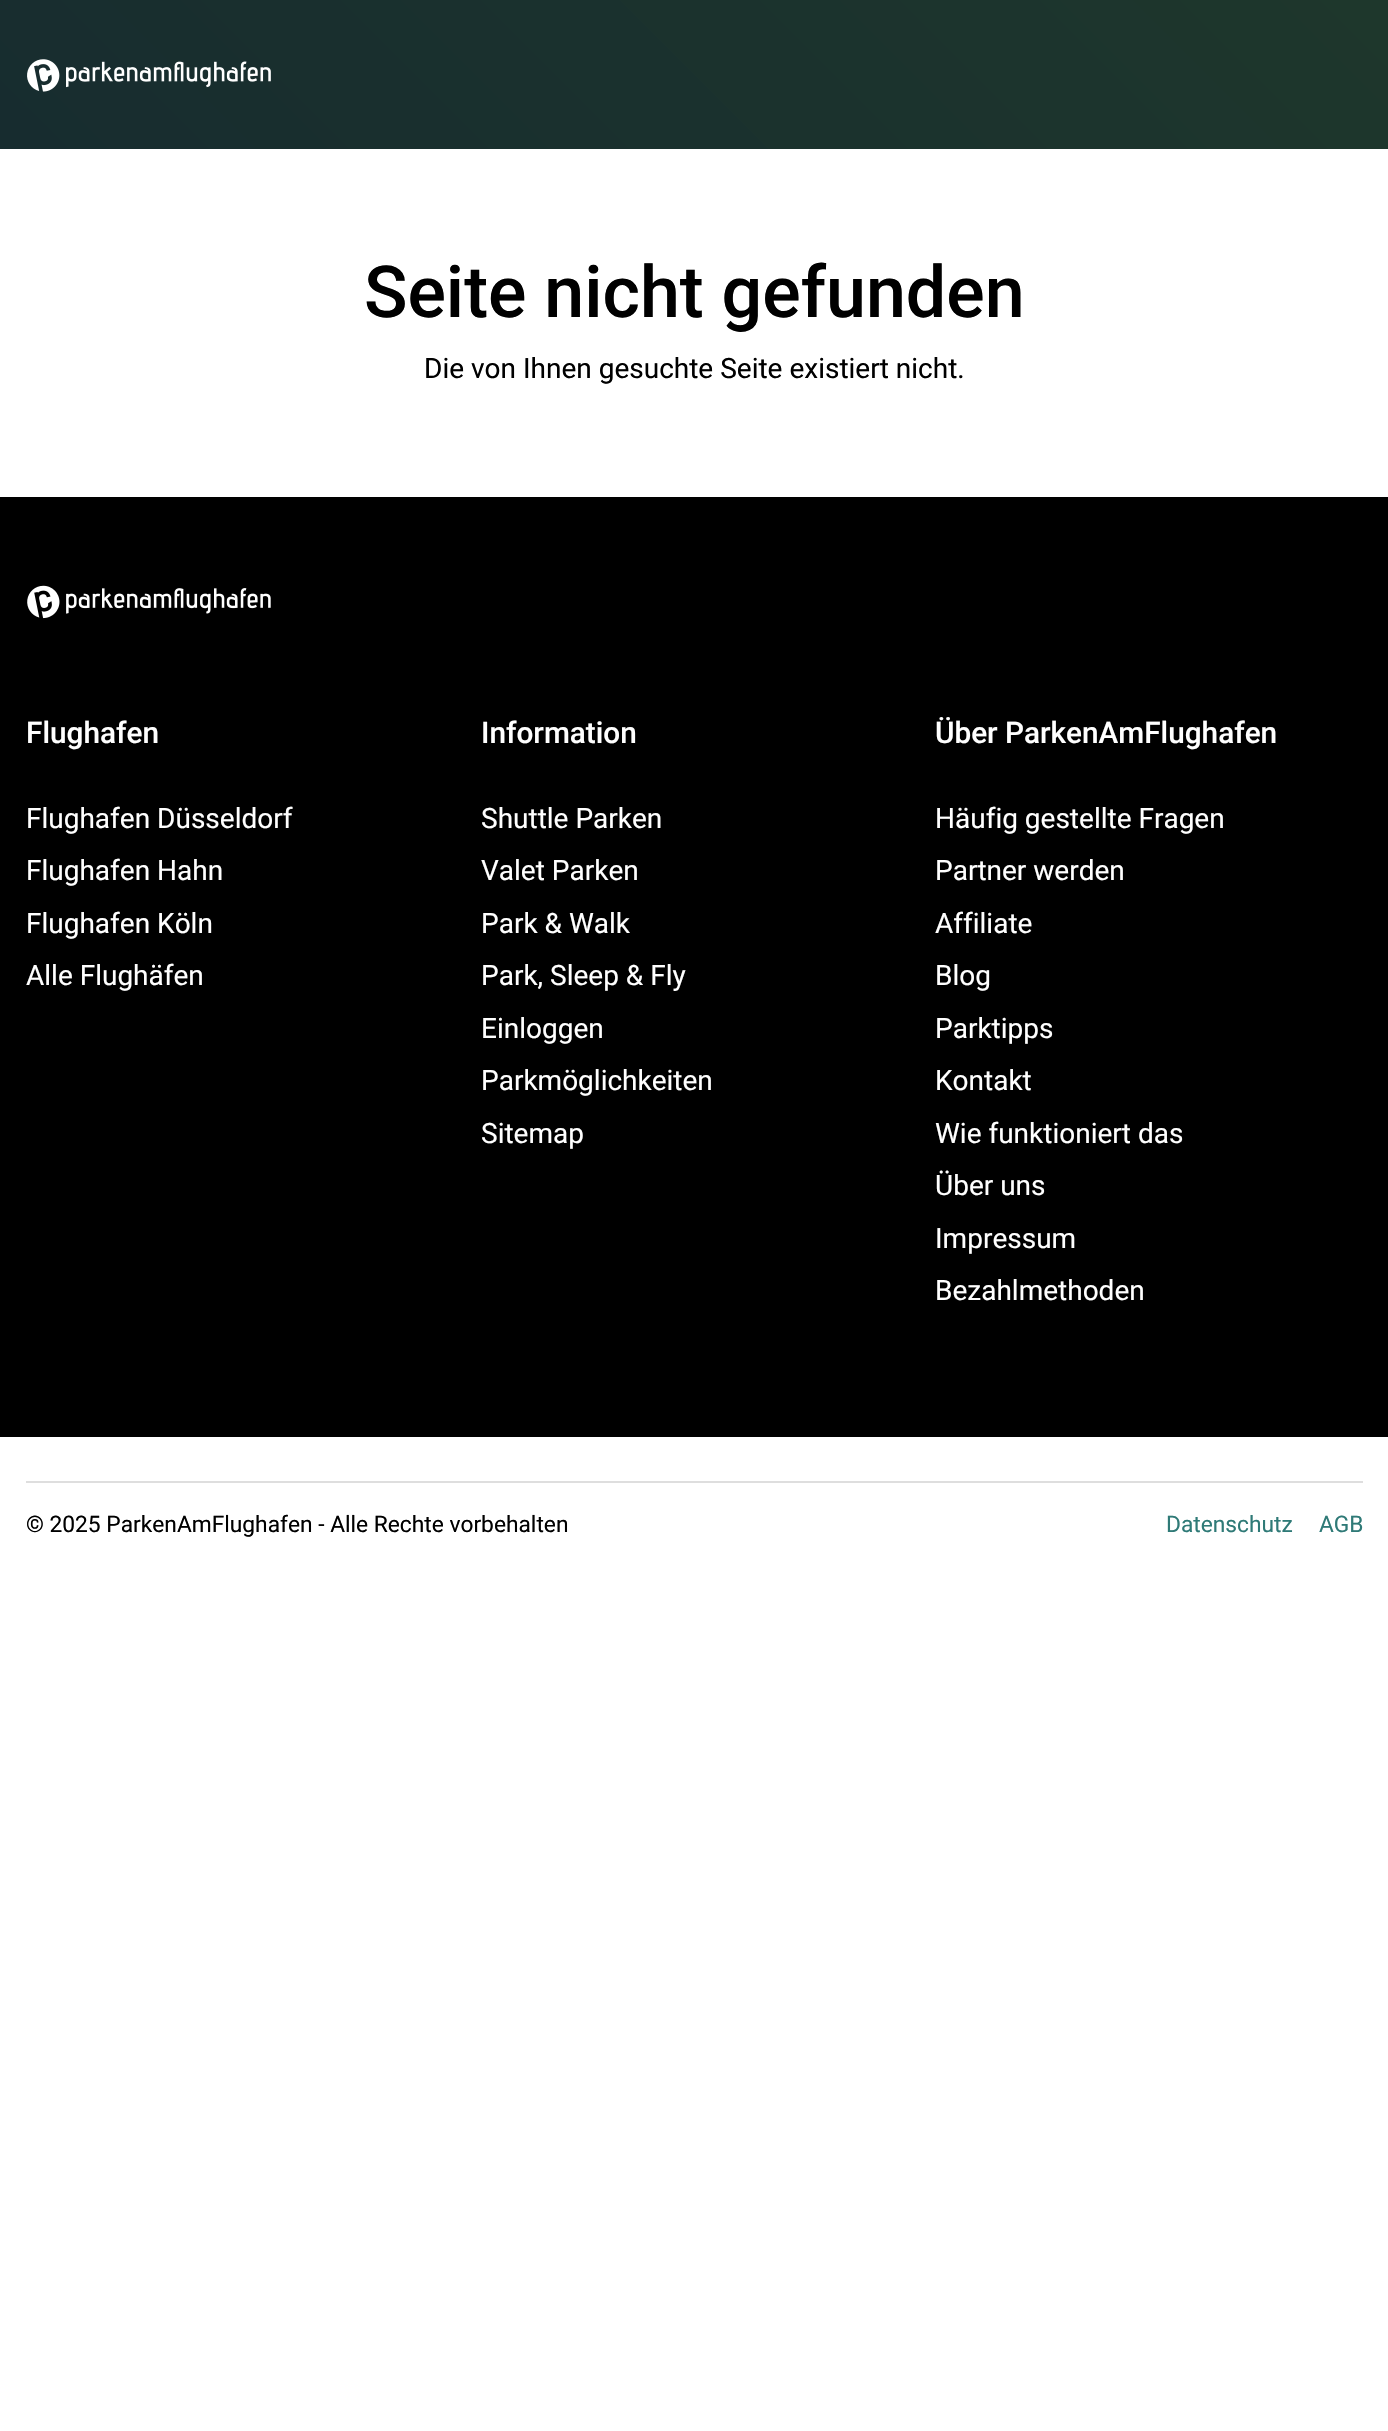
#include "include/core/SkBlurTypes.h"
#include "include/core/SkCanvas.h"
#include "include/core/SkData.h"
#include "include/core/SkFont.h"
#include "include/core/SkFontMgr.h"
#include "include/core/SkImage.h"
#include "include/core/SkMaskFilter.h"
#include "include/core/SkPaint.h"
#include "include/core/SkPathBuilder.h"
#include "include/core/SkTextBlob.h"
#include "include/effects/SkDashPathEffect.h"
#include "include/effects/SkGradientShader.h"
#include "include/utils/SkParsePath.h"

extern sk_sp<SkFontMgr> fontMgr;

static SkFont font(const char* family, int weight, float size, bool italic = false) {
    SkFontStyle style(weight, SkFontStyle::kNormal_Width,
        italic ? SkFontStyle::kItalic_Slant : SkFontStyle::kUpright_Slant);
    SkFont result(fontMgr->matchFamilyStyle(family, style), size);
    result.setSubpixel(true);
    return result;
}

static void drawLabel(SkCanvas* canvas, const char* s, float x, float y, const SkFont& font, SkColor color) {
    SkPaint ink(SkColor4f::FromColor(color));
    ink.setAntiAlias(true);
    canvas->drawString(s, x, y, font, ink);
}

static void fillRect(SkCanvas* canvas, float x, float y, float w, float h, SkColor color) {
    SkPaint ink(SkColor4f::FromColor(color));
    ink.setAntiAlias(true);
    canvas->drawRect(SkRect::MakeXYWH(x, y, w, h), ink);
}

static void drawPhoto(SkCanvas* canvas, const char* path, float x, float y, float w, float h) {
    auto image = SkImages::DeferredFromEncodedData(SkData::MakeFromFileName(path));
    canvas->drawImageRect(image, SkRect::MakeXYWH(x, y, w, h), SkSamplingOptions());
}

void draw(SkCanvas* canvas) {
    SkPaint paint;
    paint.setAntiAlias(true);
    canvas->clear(0xFFFFFFFF);
    {
        const SkColor colors[] = {0xFF172C2F, 0xFF1E372C};
        const float stops[] = {0, 1};
        const SkPoint ends[] = {{310, 459}, {1079, -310}};
        paint.setShader(SkGradientShader::MakeLinear(ends, colors, stops, 2, SkTileMode::kClamp));
        paint.setAlpha(255);
    }
    canvas->drawRect(SkRect::MakeXYWH(0, 0, 1388, 149), paint);
    drawPhoto(canvas, "assets/img1.png", 27, 59, 244, 33);
    SkFont font1 = font("Roboto", 500, 71.75f);
    drawLabel(canvas, "Seite nicht gefunden", 364, 317, font1, 0xFF000000);
    SkFont font2 = font("Roboto", 400, 28);
    drawLabel(canvas, "Die von Ihnen gesuchte Seite existiert nicht.", 424, 378, font2, 0xFF000000);
    fillRect(canvas, 0, 497, 1388, 940, 0xFF000000);
    drawPhoto(canvas, "assets/img2.png", 27, 585, 244, 34);
    SkFont font3 = font("Roboto", 500, 29.75f);
    drawLabel(canvas, "Flughafen", 26, 743, font3, 0xFFFFFFFF);
    drawLabel(canvas, "Flughafen Düsseldorf", 26, 828, font2, 0xFFFFFFFF);
    drawLabel(canvas, "Flughafen Hahn", 26, 880, font2, 0xFFFFFFFF);
    drawLabel(canvas, "Flughafen Köln", 26, 933, font2, 0xFFFFFFFF);
    drawLabel(canvas, "Alle Flughäfen", 26, 985, font2, 0xFFFFFFFF);
    drawLabel(canvas, "Information", 481, 743, font3, 0xFFFFFFFF);
    drawLabel(canvas, "Shuttle Parken", 481, 828, font2, 0xFFFFFFFF);
    drawLabel(canvas, "Valet Parken", 481, 880, font2, 0xFFFFFFFF);
    drawLabel(canvas, "Park & Walk", 481, 933, font2, 0xFFFFFFFF);
    drawLabel(canvas, "Park, Sleep & Fly", 481, 985, font2, 0xFFFFFFFF);
    drawLabel(canvas, "Einloggen", 481, 1038, font2, 0xFFFFFFFF);
    drawLabel(canvas, "Parkmöglichkeiten", 481, 1090, font2, 0xFFFFFFFF);
    drawLabel(canvas, "Sitemap", 481, 1143, font2, 0xFFFFFFFF);
    drawLabel(canvas, "Über ParkenAmFlughafen", 935, 743, font3, 0xFFFFFFFF);
    drawLabel(canvas, "Häufig gestellte Fragen", 935, 828, font2, 0xFFFFFFFF);
    drawLabel(canvas, "Partner werden", 935, 880, font2, 0xFFFFFFFF);
    drawLabel(canvas, "Affiliate", 935, 933, font2, 0xFFFFFFFF);
    drawLabel(canvas, "Blog", 935, 985, font2, 0xFFFFFFFF);
    drawLabel(canvas, "Parktipps", 935, 1038, font2, 0xFFFFFFFF);
    drawLabel(canvas, "Kontakt", 935, 1090, font2, 0xFFFFFFFF);
    drawLabel(canvas, "Wie funktioniert das", 935, 1143, font2, 0xFFFFFFFF);
    drawLabel(canvas, "Über uns", 935, 1195, font2, 0xFFFFFFFF);
    drawLabel(canvas, "Impressum", 935, 1248, font2, 0xFFFFFFFF);
    drawLabel(canvas, "Bezahlmethoden", 935, 1300, font2, 0xFFFFFFFF);
    fillRect(canvas, 26, 1481, 1337, 2, 0xFFDEDEDE);
    SkFont font4 = font("Roboto", 400, 22.75f);
    drawLabel(canvas, "© 2025 ParkenAmFlughafen - Alle Rechte vorbehalten", 26, 1532, font4, 0xFF000000);
    drawLabel(canvas, "Datenschutz", 1166, 1532, font4, 0xFF2F7A77);
    drawLabel(canvas, "AGB", 1319, 1532, font4, 0xFF2F7A77);
}
